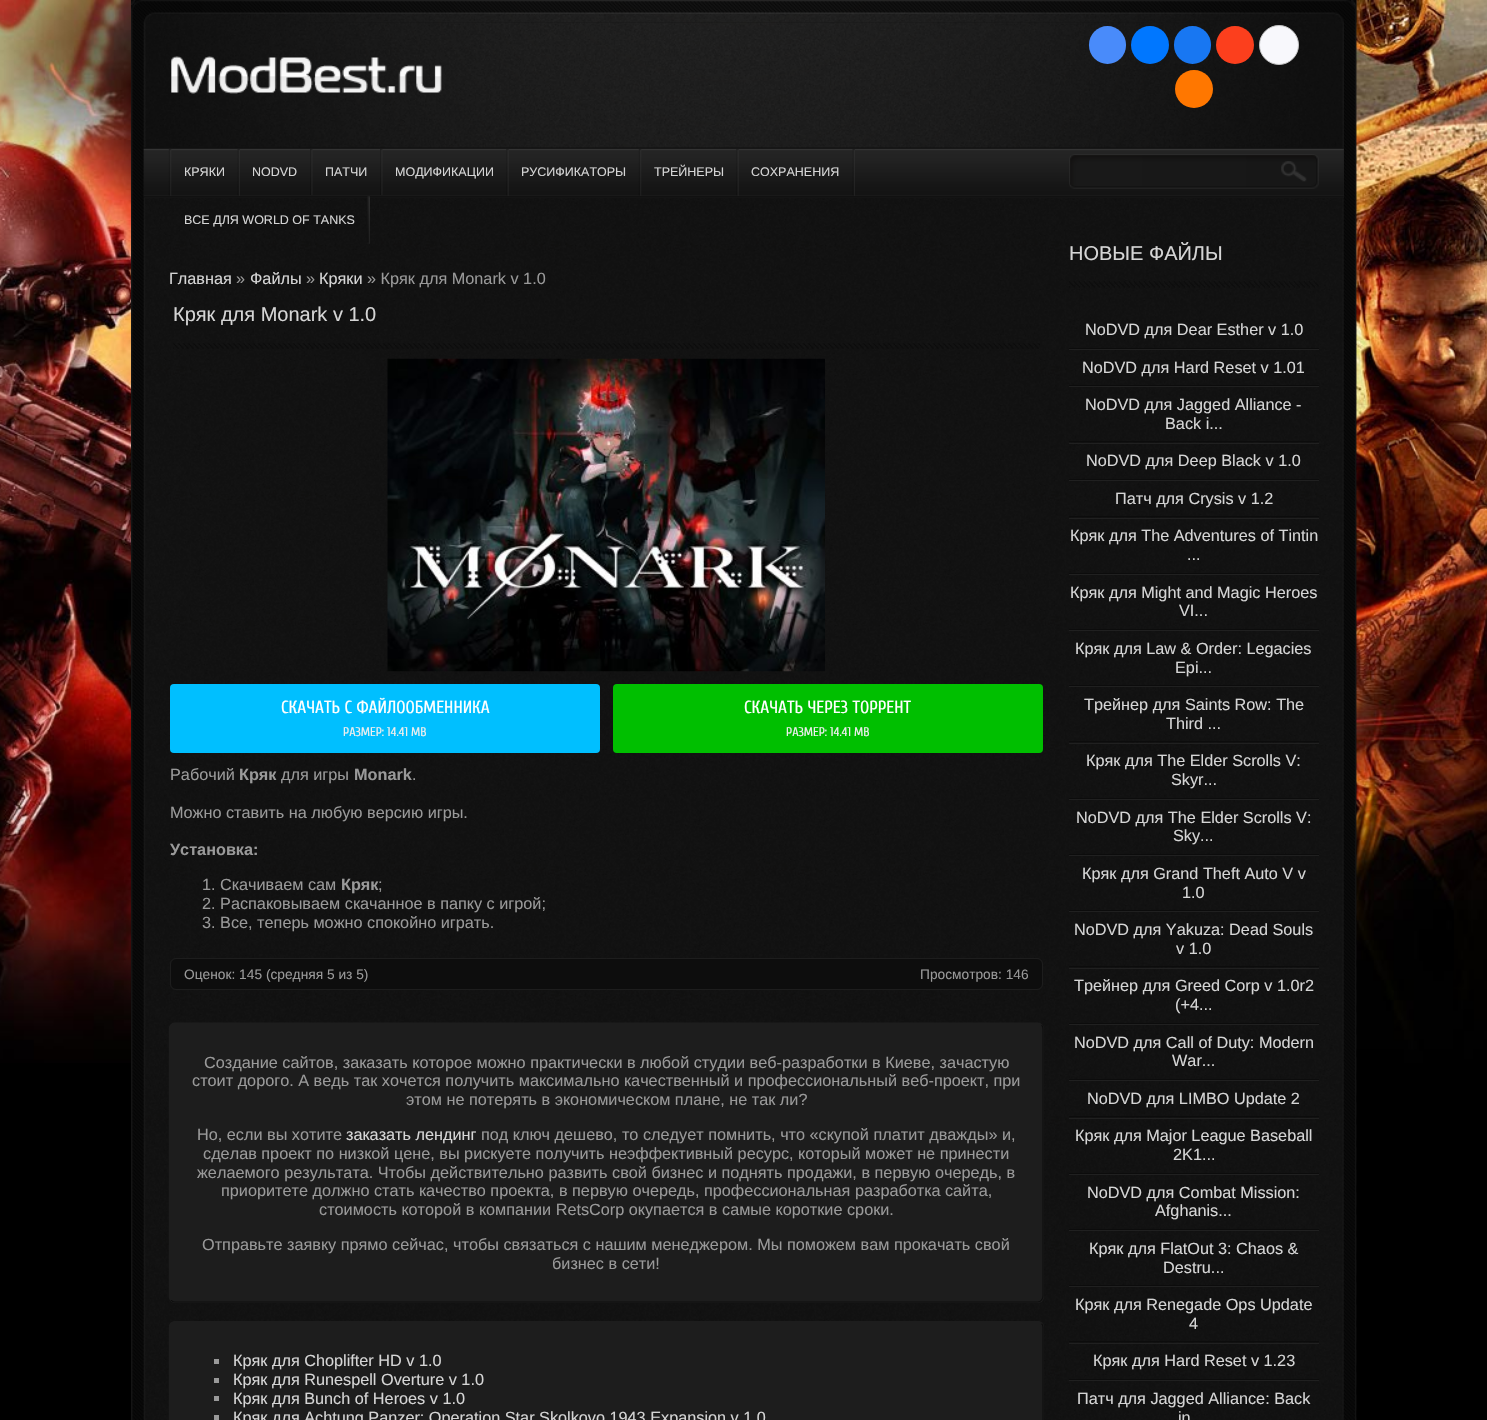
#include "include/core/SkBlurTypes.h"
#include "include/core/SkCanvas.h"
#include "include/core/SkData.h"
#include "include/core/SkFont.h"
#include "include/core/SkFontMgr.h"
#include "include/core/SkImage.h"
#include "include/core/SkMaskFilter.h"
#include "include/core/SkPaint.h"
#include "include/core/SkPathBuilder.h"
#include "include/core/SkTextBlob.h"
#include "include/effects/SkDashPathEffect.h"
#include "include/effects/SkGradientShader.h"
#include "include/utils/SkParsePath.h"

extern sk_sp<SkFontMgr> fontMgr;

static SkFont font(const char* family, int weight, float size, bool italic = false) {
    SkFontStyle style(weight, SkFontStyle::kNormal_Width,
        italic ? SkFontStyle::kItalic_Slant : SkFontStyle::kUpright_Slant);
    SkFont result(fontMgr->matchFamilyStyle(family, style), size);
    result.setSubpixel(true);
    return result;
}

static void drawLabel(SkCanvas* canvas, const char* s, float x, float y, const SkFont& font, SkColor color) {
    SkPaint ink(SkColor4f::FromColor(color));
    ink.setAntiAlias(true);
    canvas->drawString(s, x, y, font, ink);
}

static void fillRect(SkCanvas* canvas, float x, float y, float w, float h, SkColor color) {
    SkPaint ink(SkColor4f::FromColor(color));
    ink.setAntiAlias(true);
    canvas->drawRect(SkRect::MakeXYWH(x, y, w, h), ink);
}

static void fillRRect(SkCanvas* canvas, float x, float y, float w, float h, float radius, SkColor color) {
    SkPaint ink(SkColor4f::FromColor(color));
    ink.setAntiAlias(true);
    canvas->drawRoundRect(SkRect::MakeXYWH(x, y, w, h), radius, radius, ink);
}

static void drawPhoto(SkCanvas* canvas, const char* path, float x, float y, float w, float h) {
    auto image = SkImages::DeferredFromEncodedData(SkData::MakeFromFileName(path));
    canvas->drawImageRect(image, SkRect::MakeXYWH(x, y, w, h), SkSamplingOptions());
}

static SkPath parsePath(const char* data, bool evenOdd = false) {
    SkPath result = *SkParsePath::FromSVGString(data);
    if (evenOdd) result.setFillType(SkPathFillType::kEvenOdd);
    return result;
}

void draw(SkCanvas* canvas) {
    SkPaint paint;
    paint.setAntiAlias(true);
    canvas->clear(0xFF000000);
    drawPhoto(canvas, "assets/img1.png", 0, 0, 1487, 1063);
    fillRect(canvas, 131, 0, 1, 1420, 0xFF141414);
    drawPhoto(canvas, "assets/img2.png", 144, 0, 1213, 1420);
    drawPhoto(canvas, "assets/img3.png", 132, 0, 1225, 1420);
    drawPhoto(canvas, "assets/img4.png", 131, 0, 1226, 23);
    fillRect(canvas, 144, 148, 1200, 50, 0xFF1B1B1B);
    drawPhoto(canvas, "assets/img7.png", 143, 147, 1201, 51);
    drawPhoto(canvas, "assets/img5.png", 146, 22, 1198, 126);
    drawPhoto(canvas, "assets/img6.png", 171, 56, 271, 38);
    fillRRect(canvas, 1089, 26, 37, 38, 18.5f, 0xFF498BFA);
    paint.setColor(0xFF0077FF);
    canvas->drawCircle(1150, 45, 19, paint);
    fillRRect(canvas, 1174, 26, 37, 38, 18.5f, 0xFF1877F2);
    paint.setColor(0xFFFC3F1D);
    canvas->drawCircle(1235, 45, 19, paint);
    paint.setColor(0xFFF8F8FC);
    canvas->drawCircle(1279, 45, 19.5f, paint);
    paint.setStroke(true);
    paint.setStrokeWidth(1);
    paint.setColor(0xFFC4C4C4);
    canvas->drawCircle(1279, 45, 19.5f, paint);
    paint.setStroke(false);
    paint.setColor(0xFFFF7700);
    canvas->drawCircle(1194, 89, 19, paint);
    drawPhoto(canvas, "assets/img8.png", 168, 149, 4, 47);
    drawPhoto(canvas, "assets/img9.png", 237, 149, 3, 47);
    SkFont font1 = font("Liberation Sans", 400, 12.5f);
    drawLabel(canvas, "КРЯКИ", 184, 176, font1, 0xFFD5D5D5);
    drawPhoto(canvas, "assets/img10.png", 310, 149, 3, 46);
    drawLabel(canvas, "NODVD", 252, 176, font1, 0xFFD5D5D5);
    drawPhoto(canvas, "assets/img10.png", 380, 149, 3, 46);
    drawLabel(canvas, "ПАТЧИ", 325, 176, font1, 0xFFD5D5D5);
    drawPhoto(canvas, "assets/img11.png", 506, 149, 3, 47);
    drawLabel(canvas, "МОДИФИКАЦИИ", 395, 176, font1, 0xFFD5D5D5);
    drawPhoto(canvas, "assets/img8.png", 638, 149, 4, 47);
    drawLabel(canvas, "РУСИФИКАТОРЫ", 521, 176, font1, 0xFFD5D5D5);
    drawPhoto(canvas, "assets/img11.png", 736, 149, 3, 47);
    drawLabel(canvas, "ТРЕЙНЕРЫ", 654, 176, font1, 0xFFD5D5D5);
    drawPhoto(canvas, "assets/img9.png", 852, 149, 3, 47);
    drawLabel(canvas, "СОХРАНЕНИЯ", 751, 176, font1, 0xFFD5D5D5);
    drawPhoto(canvas, "assets/img12.png", 367, 196, 3, 48);
    drawLabel(canvas, "ВСЕ ДЛЯ WORLD OF TANKS", 184, 224, font1, 0xFFD5D5D5);
    drawPhoto(canvas, "assets/img13.png", 1069, 154, 250, 35);
    drawPhoto(canvas, "assets/img14.png", 1281, 161, 26, 21);
    SkFont font2 = font("Liberation Sans", 400, 16.25f);
    drawLabel(canvas, "Главная", 169, 284, font2, 0xFFD5D5D5);
    drawLabel(canvas, "»", 236, 284, font2, 0xFF999999);
    drawLabel(canvas, "Файлы", 250, 284, font2, 0xFFD5D5D5);
    drawLabel(canvas, "»", 306, 284, font2, 0xFF999999);
    drawLabel(canvas, "Кряки", 319, 284, font2, 0xFFD5D5D5);
    drawLabel(canvas, "» Кряк для Monark v 1.0", 367, 284, font2, 0xFF999999);
    drawPhoto(canvas, "assets/img15.png", 173, 343, 867, 6);
    SkFont font3 = font("Liberation Sans", 400, 20);
    drawLabel(canvas, "Кряк для Monark v 1.0", 173, 321, font3, 0xFFD5D5D5);
    drawPhoto(canvas, "assets/img16.png", 387, 358, 438, 314);
    fillRRect(canvas, 170, 684, 430, 69, 4, 0xFF00BFFF);
    SkFont font4 = font("Cuprum", 400, 17.5f);
    drawLabel(canvas, "СКАЧАТЬ С ФАЙЛООБМЕННИКА", 281, 713, font4, 0xFFFFFFFF);
    SkFont font5 = font("Cuprum", 400, 12.5f);
    drawLabel(canvas, "РАЗМЕР: 14.41 MB", 343, 736, font5, 0xFFEEEEEE);
    fillRRect(canvas, 613, 684, 430, 69, 4, 0xFF00BF00);
    drawLabel(canvas, "СКАЧАТЬ ЧЕРЕЗ ТОРРЕНТ", 744, 713, font4, 0xFFFFFFFF);
    drawLabel(canvas, "РАЗМЕР: 14.41 MB", 786, 736, font5, 0xFFEEEEEE);
    drawLabel(canvas, "Рабочий", 170, 780, font2, 0xFF999999);
    SkFont font6 = font("Liberation Sans", 700, 16.25f);
    drawLabel(canvas, "Кряк", 239, 780, font6, 0xFF999999);
    drawLabel(canvas, "для игры", 281, 780, font2, 0xFF999999);
    drawLabel(canvas, "Monark", 354, 780, font6, 0xFF999999);
    drawLabel(canvas, ".", 412, 780, font2, 0xFF999999);
    drawLabel(canvas, "Можно ставить на любую версию игры.", 170, 818, font2, 0xFF999999);
    drawLabel(canvas, "Установка:", 170, 855, font6, 0xFF999999);
    drawLabel(canvas, "1. Скачиваем сам", 202, 890, font2, 0xFF999999);
    drawLabel(canvas, "Кряк", 341, 890, font6, 0xFF999999);
    drawLabel(canvas, ";", 378, 890, font2, 0xFF999999);
    drawLabel(canvas, "2. Распаковываем скачанное в папку с игрой;", 202, 909, font2, 0xFF999999);
    drawLabel(canvas, "3. Все, теперь можно спокойно играть.", 202, 928, font2, 0xFF999999);
    paint.setColor(0xFF0D0D0D);
    canvas->drawRoundRect(SkRect::MakeXYWH(170.5f, 958.5f, 872, 31), 5.5f, 5.5f, paint);
    paint.setStroke(true);
    paint.setColor(0xFF1D1D1D);
    canvas->drawRoundRect(SkRect::MakeXYWH(170.5f, 958.5f, 872, 31), 5.5f, 5.5f, paint);
    SkFont font7 = font("Liberation Sans", 400, 13.75f);
    drawLabel(canvas, "Оценок: 145 (средняя 5 из 5)", 184, 979, font7, 0xFF999999);
    drawLabel(canvas, "Просмотров: 146", 920, 979, font7, 0xFF999999);
    fillRRect(canvas, 169, 1023, 875, 280, 6, 0xFF1D1D1D);
    paint.setStrokeWidth(1.2f);
    paint.setColor(0xFF0D0D0D);
    canvas->drawPath(parsePath("M1041.5 1025C1042.5 1026 1043 1027.5 1043 1029V1296C1043 1297.5 1042.5 1299 1041.5 1300C1040.5 1301.5 1039 1302 1037.5 1302H175C173.5 1302 172 1301.5 171 1300"), paint);
    paint.setColor(0xFF1D1D1D);
    canvas->drawPath(parsePath("M171 1300C170 1299 169.5 1297.5 169.5 1296V1029C169.5 1027.5 170 1026 171 1025C172 1023.5 173.5 1023 175 1023H1037.5C1039 1023 1040.5 1023.5 1041.5 1025"), paint);
    drawLabel(canvas, "Создание сайтов, заказать которое можно практически в любой студии веб-разработки в Киеве, зачастую", 204, 1068, font2, 0xFF999999);
    drawLabel(canvas, "стоит дорого. А ведь так хочется получить максимально качественный и профессиональный веб-проект, при", 192, 1086, font2, 0xFF999999);
    drawLabel(canvas, "этом не потерять в экономическом плане, не так ли?", 406, 1105, font2, 0xFF999999);
    drawLabel(canvas, "Но, если вы хотите", 197, 1140, font2, 0xFF999999);
    drawLabel(canvas, "заказать лендинг", 346, 1140, font2, 0xFFD5D5D5);
    drawLabel(canvas, "под ключ дешево, то следует помнить, что «скупой платит дважды» и,", 481, 1140, font2, 0xFF999999);
    drawLabel(canvas, "сделав проект по низкой цене, вы рискуете получить неэффективный ресурс, который может не принести", 203, 1159, font2, 0xFF999999);
    drawLabel(canvas, "желаемого результата. Чтобы действительно развить свой бизнес и поднять продажи, в первую очередь, в", 197, 1178, font2, 0xFF999999);
    drawLabel(canvas, "приоритете должно стать качество проекта, в первую очередь, профессиональная разработка сайта,", 221, 1196, font2, 0xFF999999);
    drawLabel(canvas, "стоимость которой в компании RetsCorp окупается в самые короткие сроки.", 319, 1215, font2, 0xFF999999);
    drawLabel(canvas, "Отправьте заявку прямо сейчас, чтобы связаться с нашим менеджером. Мы поможем вам прокачать свой", 202, 1250, font2, 0xFF999999);
    drawLabel(canvas, "бизнес в сети!", 552, 1269, font2, 0xFF999999);
    fillRRect(canvas, 169, 1321, 875, 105, 6, 0xFF1D1D1D);
    paint.setColor(0xFF0D0D0D);
    canvas->drawPath(parsePath("M1041.5 1323.5C1042.5 1324.5 1043 1326 1043 1327.5V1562.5C1043 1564 1042.5 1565.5 1041.5 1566.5C1040.5 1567.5 1039 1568 1037.5 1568H175C173.5 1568 172 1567.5 171 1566.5"), paint);
    paint.setColor(0xFF1D1D1D);
    canvas->drawPath(parsePath("M171 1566.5C170 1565.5 169.5 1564 169.5 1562.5V1327.5C169.5 1326 170 1324.5 171 1323.5C172 1322.5 173.5 1322 175 1322H1037.5C1039 1322 1040.5 1322.5 1041.5 1323.5"), paint);
    fillRect(canvas, 214, 1359, 5, 5, 0xFF999999);
    drawLabel(canvas, "Кряк для Choplifter HD v 1.0", 233, 1366, font2, 0xFFD5D5D5);
    fillRect(canvas, 214, 1378, 5, 5, 0xFF999999);
    drawLabel(canvas, "Кряк для Runespell Overture v 1.0", 233, 1385, font2, 0xFFD5D5D5);
    fillRect(canvas, 214, 1396, 5, 5, 0xFF999999);
    drawLabel(canvas, "Кряк для Bunch of Heroes v 1.0", 233, 1404, font2, 0xFFD5D5D5);
    fillRect(canvas, 214, 1415, 5, 5, 0xFF999999);
    drawLabel(canvas, "Кряк для Achtung Panzer: Operation Star Skolkovo 1943 Expansion v 1.0", 233, 1423, font2, 0xFFD5D5D5);
    drawPhoto(canvas, "assets/img17.png", 1069, 281, 250, 7);
    drawLabel(canvas, "НОВЫЕ ФАЙЛЫ", 1069, 260, font3, 0xFFD5D5D5);
    drawLabel(canvas, "NoDVD для Dear Esther v 1.0", 1085, 335, font2, 0xFFD5D5D5);
    fillRect(canvas, 1069, 348, 250, 1, 0xFF0C0C0C);
    fillRect(canvas, 1069, 349, 250, 1, 0xFF202020);
    drawLabel(canvas, "NoDVD для Hard Reset v 1.01", 1082, 373, font2, 0xFFD5D5D5);
    fillRect(canvas, 1069, 385, 250, 1, 0xFF0C0C0C);
    fillRect(canvas, 1069, 386, 250, 1, 0xFF202020);
    drawLabel(canvas, "NoDVD для Jagged Alliance -", 1085, 410, font2, 0xFFD5D5D5);
    drawLabel(canvas, "Back i...", 1165, 429, font2, 0xFFD5D5D5);
    fillRect(canvas, 1069, 441, 250, 1, 0xFF0C0C0C);
    fillRect(canvas, 1069, 443, 250, 1, 0xFF202020);
    drawLabel(canvas, "NoDVD для Deep Black v 1.0", 1086, 466, font2, 0xFFD5D5D5);
    fillRect(canvas, 1069, 479, 250, 1, 0xFF0C0C0C);
    fillRect(canvas, 1069, 480, 250, 1, 0xFF202020);
    drawLabel(canvas, "Патч для Crysis v 1.2", 1115, 504, font2, 0xFFD5D5D5);
    fillRect(canvas, 1069, 516, 250, 1, 0xFF0C0C0C);
    fillRect(canvas, 1069, 518, 250, 1, 0xFF202020);
    drawLabel(canvas, "Кряк для The Adventures of Tintin", 1070, 541, font2, 0xFFD5D5D5);
    drawLabel(canvas, "...", 1187, 560, font2, 0xFFD5D5D5);
    fillRect(canvas, 1069, 573, 250, 1, 0xFF0C0C0C);
    fillRect(canvas, 1069, 574, 250, 1, 0xFF202020);
    drawLabel(canvas, "Кряк для Might and Magic Heroes", 1070, 598, font2, 0xFFD5D5D5);
    drawLabel(canvas, "VI...", 1179, 616, font2, 0xFFD5D5D5);
    fillRect(canvas, 1069, 629, 250, 1, 0xFF0C0C0C);
    fillRect(canvas, 1069, 630, 250, 1, 0xFF202020);
    drawLabel(canvas, "Кряк для Law & Order: Legacies", 1075, 654, font2, 0xFFD5D5D5);
    drawLabel(canvas, "Epi...", 1175, 673, font2, 0xFFD5D5D5);
    fillRect(canvas, 1069, 685, 250, 1, 0xFF0C0C0C);
    fillRect(canvas, 1069, 686, 250, 1, 0xFF202020);
    drawLabel(canvas, "Трейнер для Saints Row: The", 1084, 710, font2, 0xFFD5D5D5);
    drawLabel(canvas, "Third ...", 1166, 729, font2, 0xFFD5D5D5);
    fillRect(canvas, 1069, 741, 250, 1, 0xFF0C0C0C);
    fillRect(canvas, 1069, 743, 250, 1, 0xFF202020);
    drawLabel(canvas, "Кряк для The Elder Scrolls V:", 1086, 766, font2, 0xFFD5D5D5);
    drawLabel(canvas, "Skyr...", 1171, 785, font2, 0xFFD5D5D5);
    fillRect(canvas, 1069, 798, 250, 1, 0xFF0C0C0C);
    fillRect(canvas, 1069, 799, 250, 1, 0xFF202020);
    drawLabel(canvas, "NoDVD для The Elder Scrolls V:", 1076, 823, font2, 0xFFD5D5D5);
    drawLabel(canvas, "Sky...", 1173, 841, font2, 0xFFD5D5D5);
    fillRect(canvas, 1069, 854, 250, 1, 0xFF0C0C0C);
    fillRect(canvas, 1069, 855, 250, 1, 0xFF202020);
    drawLabel(canvas, "Кряк для Grand Theft Auto V v", 1082, 879, font2, 0xFFD5D5D5);
    drawLabel(canvas, "1.0", 1182, 898, font2, 0xFFD5D5D5);
    fillRect(canvas, 1069, 910, 250, 1, 0xFF0C0C0C);
    fillRect(canvas, 1069, 911, 250, 1, 0xFF202020);
    drawLabel(canvas, "NoDVD для Yakuza: Dead Souls", 1074, 935, font2, 0xFFD5D5D5);
    drawLabel(canvas, "v 1.0", 1176, 954, font2, 0xFFD5D5D5);
    fillRect(canvas, 1069, 966, 250, 1, 0xFF0C0C0C);
    fillRect(canvas, 1069, 968, 250, 1, 0xFF202020);
    drawLabel(canvas, "Трейнер для Greed Corp v 1.0r2", 1074, 991, font2, 0xFFD5D5D5);
    drawLabel(canvas, "(+4...", 1175, 1010, font2, 0xFFD5D5D5);
    fillRect(canvas, 1069, 1023, 250, 1, 0xFF0C0C0C);
    fillRect(canvas, 1069, 1024, 250, 1, 0xFF202020);
    drawLabel(canvas, "NoDVD для Call of Duty: Modern", 1074, 1048, font2, 0xFFD5D5D5);
    drawLabel(canvas, "War...", 1172, 1066, font2, 0xFFD5D5D5);
    fillRect(canvas, 1069, 1079, 250, 1, 0xFF0C0C0C);
    fillRect(canvas, 1069, 1080, 250, 1, 0xFF202020);
    drawLabel(canvas, "NoDVD для LIMBO Update 2", 1087, 1104, font2, 0xFFD5D5D5);
    fillRect(canvas, 1069, 1116, 250, 1, 0xFF0C0C0C);
    fillRect(canvas, 1069, 1118, 250, 1, 0xFF202020);
    drawLabel(canvas, "Кряк для Major League Baseball", 1075, 1141, font2, 0xFFD5D5D5);
    drawLabel(canvas, "2K1...", 1173, 1160, font2, 0xFFD5D5D5);
    fillRect(canvas, 1069, 1173, 250, 1, 0xFF0C0C0C);
    fillRect(canvas, 1069, 1174, 250, 1, 0xFF202020);
    drawLabel(canvas, "NoDVD для Combat Mission:", 1087, 1198, font2, 0xFFD5D5D5);
    drawLabel(canvas, "Afghanis...", 1155, 1216, font2, 0xFFD5D5D5);
    fillRect(canvas, 1069, 1229, 250, 1, 0xFF0C0C0C);
    fillRect(canvas, 1069, 1230, 250, 1, 0xFF202020);
    drawLabel(canvas, "Кряк для FlatOut 3: Chaos &", 1089, 1254, font2, 0xFFD5D5D5);
    drawLabel(canvas, "Destru...", 1163, 1273, font2, 0xFFD5D5D5);
    fillRect(canvas, 1069, 1285, 250, 1, 0xFF0C0C0C);
    fillRect(canvas, 1069, 1286, 250, 1, 0xFF202020);
    drawLabel(canvas, "Кряк для Renegade Ops Update", 1075, 1310, font2, 0xFFD5D5D5);
    drawLabel(canvas, "4", 1189, 1329, font2, 0xFFD5D5D5);
    fillRect(canvas, 1069, 1341, 250, 1, 0xFF0C0C0C);
    fillRect(canvas, 1069, 1343, 250, 1, 0xFF202020);
    drawLabel(canvas, "Кряк для Hard Reset v 1.23", 1093, 1366, font2, 0xFFD5D5D5);
    fillRect(canvas, 1069, 1379, 250, 1, 0xFF0C0C0C);
    fillRect(canvas, 1069, 1380, 250, 1, 0xFF202020);
    drawLabel(canvas, "Патч для Jagged Alliance: Back", 1077, 1404, font2, 0xFFD5D5D5);
    drawLabel(canvas, "in", 1178, 1423, font2, 0xFFD5D5D5);
}
